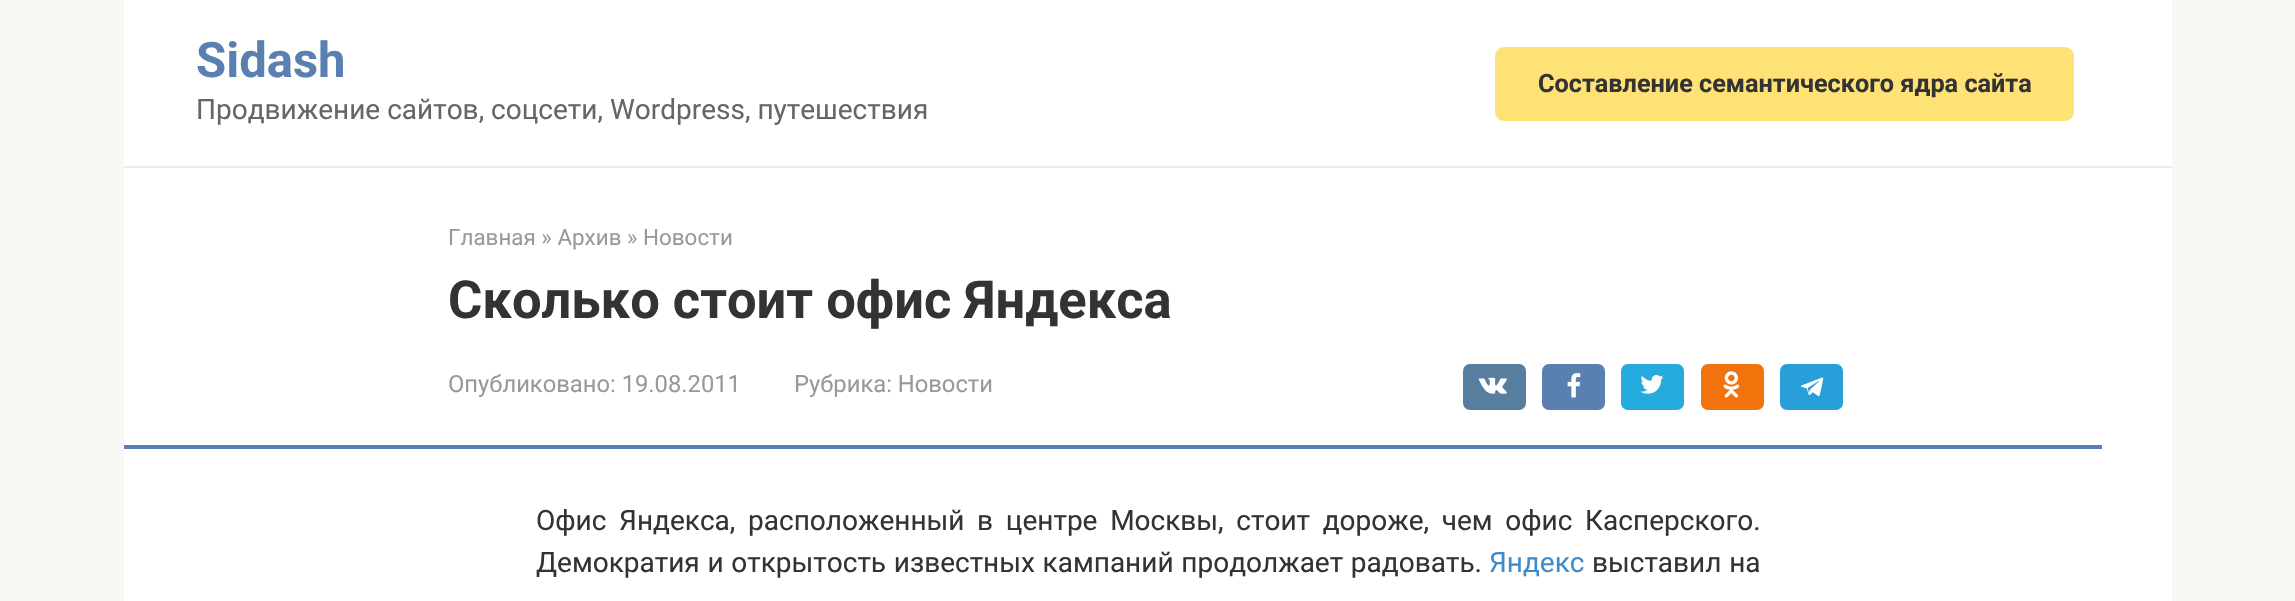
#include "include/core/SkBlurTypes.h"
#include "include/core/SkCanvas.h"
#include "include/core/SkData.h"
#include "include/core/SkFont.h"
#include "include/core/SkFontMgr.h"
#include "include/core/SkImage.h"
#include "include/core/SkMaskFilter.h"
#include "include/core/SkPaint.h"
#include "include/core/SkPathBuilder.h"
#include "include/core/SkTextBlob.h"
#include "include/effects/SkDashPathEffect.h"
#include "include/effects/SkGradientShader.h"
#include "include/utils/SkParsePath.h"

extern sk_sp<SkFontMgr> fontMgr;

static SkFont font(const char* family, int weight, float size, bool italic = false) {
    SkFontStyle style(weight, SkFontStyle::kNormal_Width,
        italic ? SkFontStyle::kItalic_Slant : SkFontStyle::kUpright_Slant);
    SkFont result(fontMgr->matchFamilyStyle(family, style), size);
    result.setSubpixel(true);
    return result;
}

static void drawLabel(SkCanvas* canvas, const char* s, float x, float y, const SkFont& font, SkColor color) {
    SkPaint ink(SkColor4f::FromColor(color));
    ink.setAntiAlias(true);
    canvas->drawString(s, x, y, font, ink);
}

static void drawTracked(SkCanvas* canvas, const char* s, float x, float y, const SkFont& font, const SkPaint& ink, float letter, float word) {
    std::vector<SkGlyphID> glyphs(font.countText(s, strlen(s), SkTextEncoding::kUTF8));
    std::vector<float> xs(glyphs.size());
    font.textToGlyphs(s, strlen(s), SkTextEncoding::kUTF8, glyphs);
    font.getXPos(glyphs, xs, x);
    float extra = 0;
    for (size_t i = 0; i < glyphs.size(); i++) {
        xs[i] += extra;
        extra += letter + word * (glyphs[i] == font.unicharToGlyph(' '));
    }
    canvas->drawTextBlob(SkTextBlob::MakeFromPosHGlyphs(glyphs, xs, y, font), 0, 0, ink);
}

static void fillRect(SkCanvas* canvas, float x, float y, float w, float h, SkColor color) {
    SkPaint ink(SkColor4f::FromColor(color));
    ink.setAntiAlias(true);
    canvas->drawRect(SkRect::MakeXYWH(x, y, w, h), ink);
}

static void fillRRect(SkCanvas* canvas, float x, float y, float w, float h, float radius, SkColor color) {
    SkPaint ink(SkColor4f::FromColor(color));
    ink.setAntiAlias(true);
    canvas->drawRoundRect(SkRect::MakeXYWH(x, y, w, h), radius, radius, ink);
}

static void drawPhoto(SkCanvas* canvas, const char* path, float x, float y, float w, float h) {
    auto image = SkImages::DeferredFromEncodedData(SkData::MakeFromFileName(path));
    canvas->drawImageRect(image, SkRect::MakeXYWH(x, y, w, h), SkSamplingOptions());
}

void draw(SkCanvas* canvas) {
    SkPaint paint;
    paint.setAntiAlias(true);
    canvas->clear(0xFFF9F8F5);
    fillRect(canvas, 124, 0, 2048, 166, 0xFFFFFFFF);
    SkFont font1 = font("Roboto", 700, 49);
    drawLabel(canvas, "Sidash", 196, 77, font1, 0xFF5A80B1);
    SkFont font2 = font("Roboto", 400, 28);
    drawLabel(canvas, "Продвижение сайтов, соцсети, Wordpress, путешествия", 196, 119, font2, 0xFF666666);
    fillRRect(canvas, 1495, 47, 579, 74, 9, 0xFFFFE276);
    SkFont font3 = font("Roboto", 700, 25.25f);
    drawLabel(canvas, "Составление семантического ядра сайта", 1538, 92, font3, 0xFF333333);
    fillRect(canvas, 124, 166, 2048, 2, 0xFFECECEC);
    fillRect(canvas, 124, 168, 2048, 433, 0xFFFFFFFF);
    SkFont font4 = font("Roboto", 400, 22.4f);
    drawLabel(canvas, "Главная » Архив » Новости", 448, 245, font4, 0xFF999999);
    SkFont font5 = font("Roboto", 700, 52.5f);
    drawLabel(canvas, "Сколько стоит офис Яндекса", 448, 318, font5, 0xFF333333);
    SkFont font6 = font("Roboto", 400, 23.75f);
    drawLabel(canvas, "Опубликовано: 19.08.2011", 448, 392, font6, 0xFF999999);
    drawLabel(canvas, "Рубрика: Новости", 794, 392, font6, 0xFF999999);
    fillRRect(canvas, 1463, 364, 63, 46, 7, 0xFF587E9F);
    drawPhoto(canvas, "assets/img1.png", 1478, 377, 29, 17);
    fillRRect(canvas, 1542, 364, 63, 46, 7, 0xFF5A80B1);
    drawPhoto(canvas, "assets/img2.png", 1567, 373, 14, 25);
    fillRRect(canvas, 1621, 364, 63, 46, 7, 0xFF24AADD);
    drawPhoto(canvas, "assets/img3.png", 1640, 375, 24, 19);
    fillRRect(canvas, 1701, 364, 63, 46, 7, 0xFFF2720C);
    drawPhoto(canvas, "assets/img4.png", 1723, 371, 17, 27);
    fillRRect(canvas, 1780, 364, 63, 46, 7, 0xFF289FD9);
    drawPhoto(canvas, "assets/img5.png", 1801, 377, 23, 20);
    fillRect(canvas, 124, 445, 1978, 4, 0xFF5A80B1);
    paint.setColor(0xFF333333);
    drawTracked(canvas, "Офис Яндекса, расположенный в центре Москвы, стоит дороже, чем офис Касперского.", 536, 530, font2, paint, 0, 5.75f);
    drawTracked(canvas, "Демократия и открытость известных кампаний продолжает радовать.", 536, 572, font2, paint, 0, 0.75f);
    drawLabel(canvas, "Яндекс", 1489, 572, font2, 0xFF428BCA);
    drawTracked(canvas, "выставил на", 1592, 572, font2, paint, 0, 0.75f);
}
